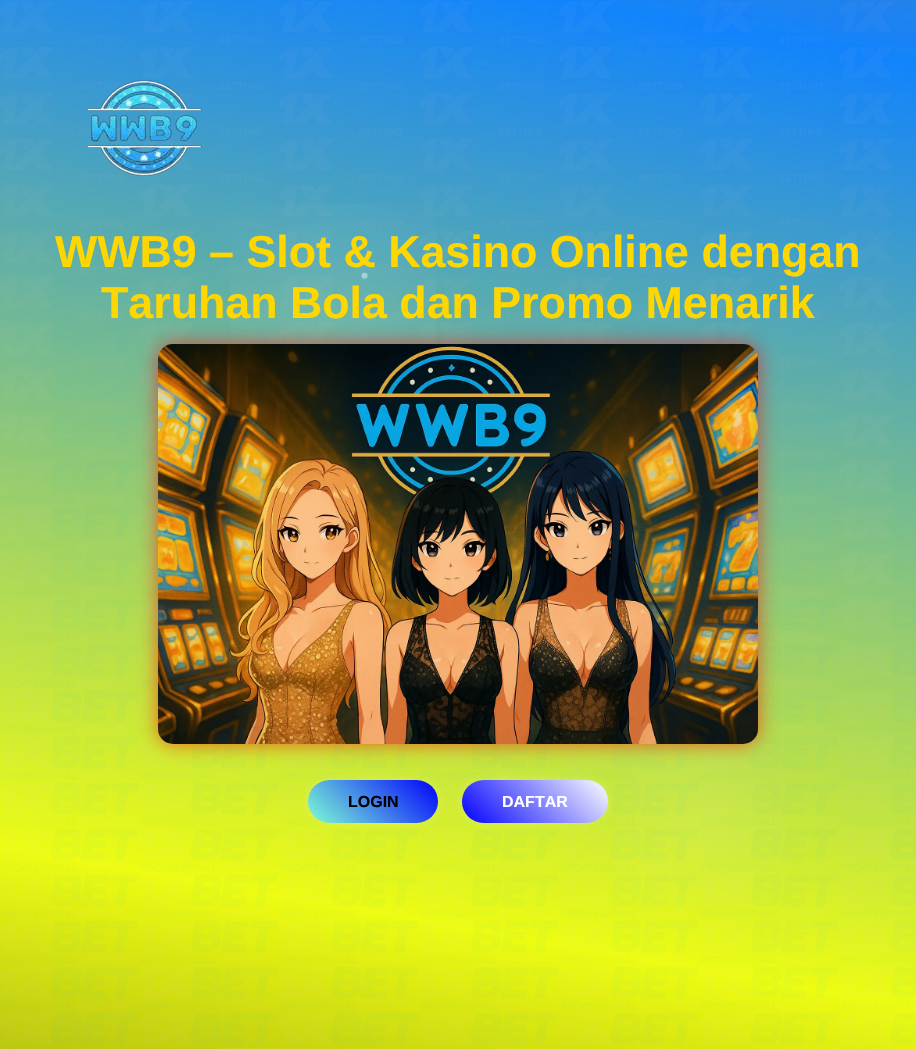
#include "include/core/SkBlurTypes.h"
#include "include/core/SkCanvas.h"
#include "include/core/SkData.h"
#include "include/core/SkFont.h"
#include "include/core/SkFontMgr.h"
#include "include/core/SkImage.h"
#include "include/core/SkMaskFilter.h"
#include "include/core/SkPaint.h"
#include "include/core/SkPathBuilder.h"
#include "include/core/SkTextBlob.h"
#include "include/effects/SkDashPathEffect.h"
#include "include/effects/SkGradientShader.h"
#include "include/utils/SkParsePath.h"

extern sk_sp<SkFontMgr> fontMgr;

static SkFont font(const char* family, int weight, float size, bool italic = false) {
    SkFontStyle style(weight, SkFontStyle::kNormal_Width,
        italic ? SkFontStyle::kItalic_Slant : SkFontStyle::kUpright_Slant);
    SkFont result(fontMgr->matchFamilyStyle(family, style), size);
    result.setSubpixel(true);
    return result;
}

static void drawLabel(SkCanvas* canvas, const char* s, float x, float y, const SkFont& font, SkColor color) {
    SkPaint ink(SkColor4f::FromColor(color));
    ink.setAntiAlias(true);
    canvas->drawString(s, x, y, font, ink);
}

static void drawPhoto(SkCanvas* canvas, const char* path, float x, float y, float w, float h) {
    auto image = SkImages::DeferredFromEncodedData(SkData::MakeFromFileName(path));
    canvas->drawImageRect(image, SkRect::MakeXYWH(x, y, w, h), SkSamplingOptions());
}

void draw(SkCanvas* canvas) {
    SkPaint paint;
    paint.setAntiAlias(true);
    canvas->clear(0xFFFFFFFF);
    {
        const SkColor colors[] = {0xFFFC6812, 0xFF1283FC, 0xFFEDFC12, 0xFF060606, 0xFFF11A1A, 0xFF060606, 0xFFEDFC12, 0xFF1283FC, 0xFFFC6812};
        const float stops[] = {0, 0.12f, 0.25f, 0.38f, 0.5f, 0.62f, 0.75f, 0.88f, 1};
        const SkPoint ends[] = {{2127, 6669}, {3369, -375}};
        paint.setShader(SkGradientShader::MakeLinear(ends, colors, stops, 9, SkTileMode::kClamp));
        paint.setAlpha(255);
    }
    canvas->drawRect(SkRect::MakeXYWH(0, 0, 916, 1049), paint);
    {
        const SkColor colors[] = {0x12FFFFFF, 0x00FFFFFF};
        const float stops[] = {0, 0.7f};
        paint.setShader(SkGradientShader::MakeRadial({333, 307}, 212, colors, stops, 2, SkTileMode::kClamp));
        paint.setAlpha(255);
    }
    canvas->drawRect(SkRect::MakeXYWH(230, 204, 206, 140), paint);
    drawPhoto(canvas, "assets/img4.png", 361, 272, 7, 7);
    {
        const SkColor colors[] = {0x12FFFFFF, 0x00FFFFFF};
        const float stops[] = {0, 0.7f};
        paint.setShader(SkGradientShader::MakeRadial({699, 819}, 177, colors, stops, 2, SkTileMode::kClamp));
        paint.setAlpha(255);
    }
    canvas->drawRect(SkRect::MakeXYWH(613, 744, 172, 161), paint);
    drawPhoto(canvas, "assets/img1.png", 0, 1, 916, 1048);
    drawPhoto(canvas, "assets/img2.png", 86, 80, 116, 96);
    SkFont font1 = font("Liberation Sans", 700, 44.75f);
    drawLabel(canvas, "WWB9 – Slot & Kasino Online dengan", 55, 267, font1, 0xFFFFD700);
    drawLabel(canvas, "Taruhan Bola dan Promo Menarik", 101, 318, font1, 0xFFFFD700);
    paint.setShader(nullptr);
    paint.setColor(0x99FF0000);
    paint.setMaskFilter(SkMaskFilter::MakeBlur(kNormal_SkBlurStyle, 10));
    canvas->drawRoundRect(SkRect::MakeXYWH(158, 344, 600, 400), 15, 15, paint);
    paint.setMaskFilter(nullptr);
    drawPhoto(canvas, "assets/img3.png", 158, 344, 600, 400);
    paint.setColor(0x33FFFFFF);
    paint.setMaskFilter(SkMaskFilter::MakeBlur(kNormal_SkBlurStyle, 5));
    canvas->drawRoundRect(SkRect::MakeXYWH(308, 780, 130, 43), 21.5f, 21.5f, paint);
    paint.setMaskFilter(nullptr);
    {
        const SkColor colors[] = {0xFF7FFFD4, 0xFF0000FF};
        const float stops[] = {0, 1};
        const SkPoint ends[] = {{330, 845}, {416, 758}};
        paint.setShader(SkGradientShader::MakeLinear(ends, colors, stops, 2, SkTileMode::kClamp));
        paint.setAlpha(255);
    }
    canvas->drawRoundRect(SkRect::MakeXYWH(308, 780, 130, 43), 21.5f, 21.5f, paint);
    SkFont font2 = font("Liberation Sans", 700, 16);
    drawLabel(canvas, "LOGIN", 348, 807, font2, 0xFF000000);
    paint.setShader(nullptr);
    paint.setColor(0x33FFFFFF);
    paint.setMaskFilter(SkMaskFilter::MakeBlur(kNormal_SkBlurStyle, 5));
    canvas->drawRoundRect(SkRect::MakeXYWH(462, 780, 146, 43), 21.5f, 21.5f, paint);
    paint.setMaskFilter(nullptr);
    {
        const SkColor colors[] = {0xFF0000FF, 0xFFFFFFFF};
        const float stops[] = {0, 1};
        const SkPoint ends[] = {{488, 849}, {582, 754}};
        paint.setShader(SkGradientShader::MakeLinear(ends, colors, stops, 2, SkTileMode::kClamp));
        paint.setAlpha(255);
    }
    canvas->drawRoundRect(SkRect::MakeXYWH(462, 780, 146, 43), 21.5f, 21.5f, paint);
    drawLabel(canvas, "DAFTAR", 502, 807, font2, 0xFFFFFFFF);
}
